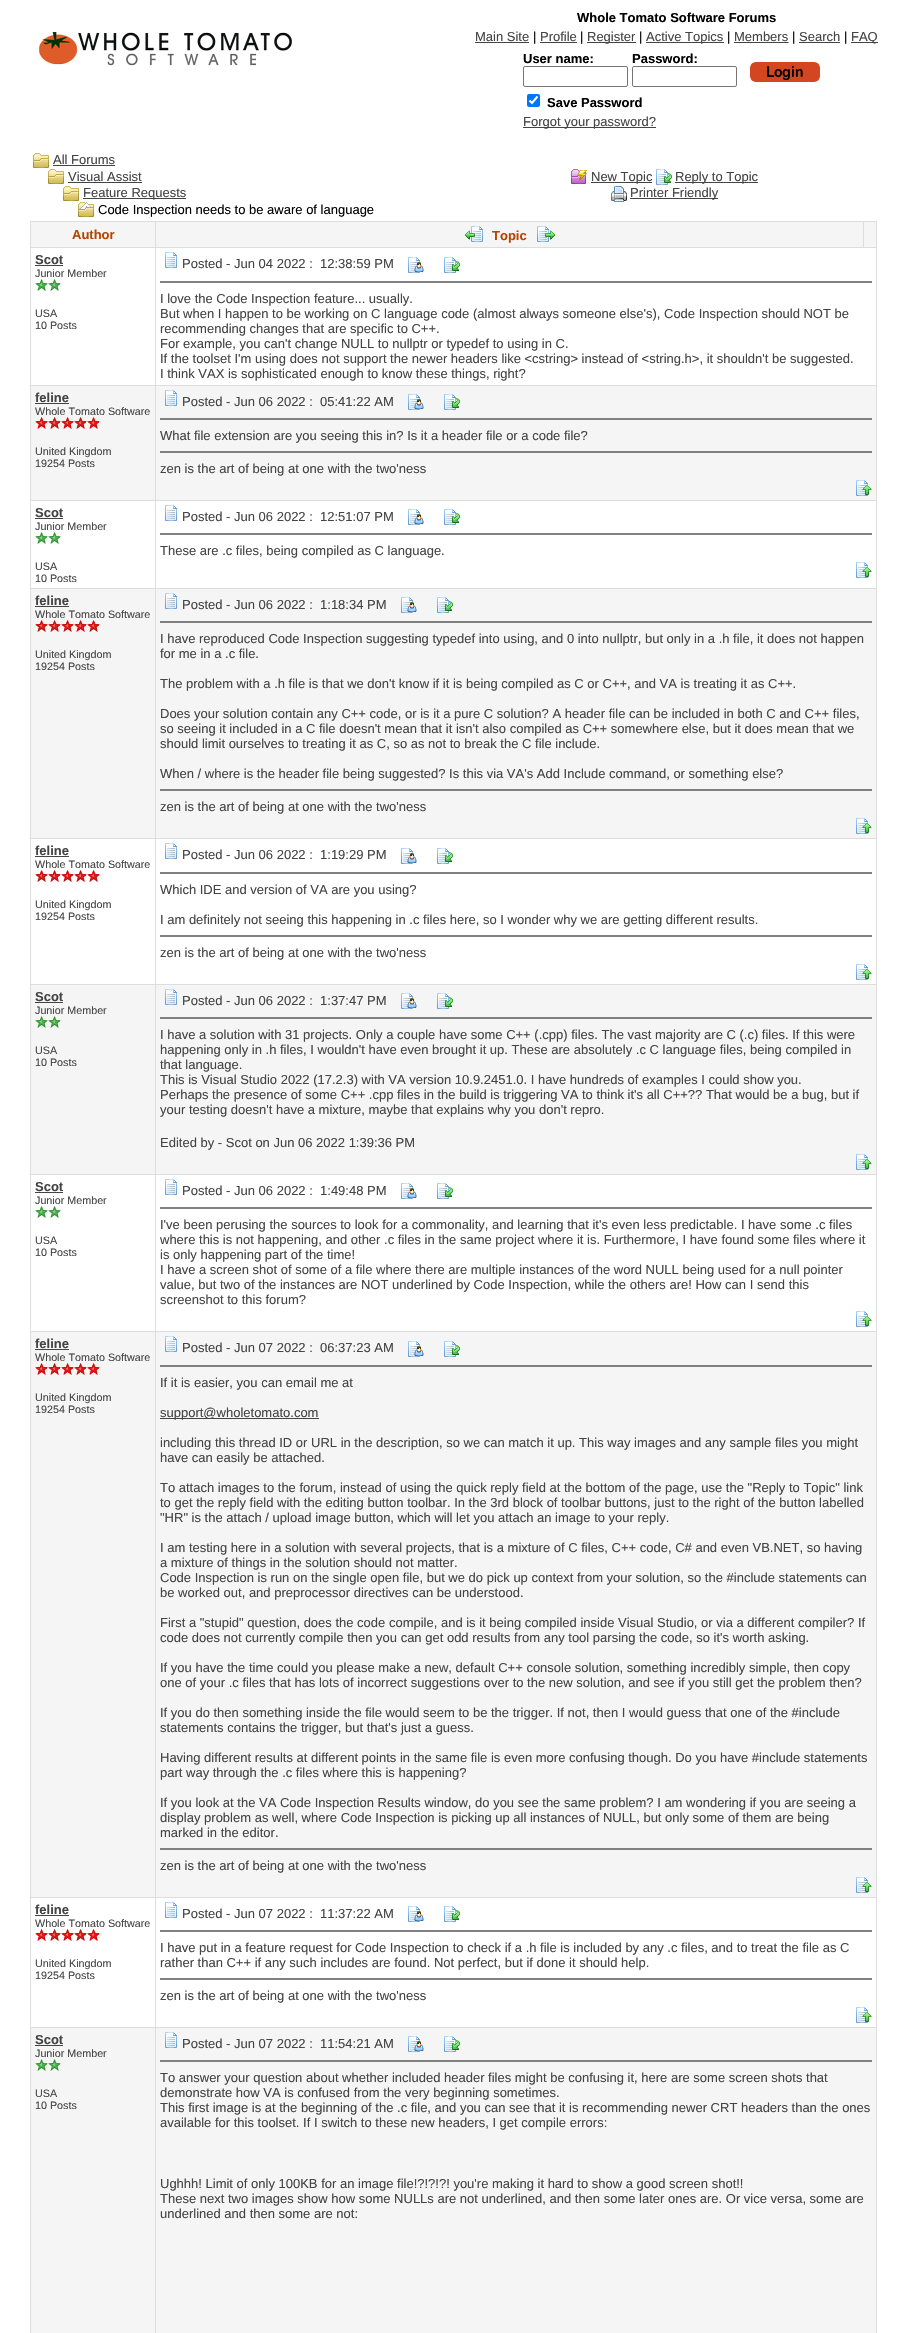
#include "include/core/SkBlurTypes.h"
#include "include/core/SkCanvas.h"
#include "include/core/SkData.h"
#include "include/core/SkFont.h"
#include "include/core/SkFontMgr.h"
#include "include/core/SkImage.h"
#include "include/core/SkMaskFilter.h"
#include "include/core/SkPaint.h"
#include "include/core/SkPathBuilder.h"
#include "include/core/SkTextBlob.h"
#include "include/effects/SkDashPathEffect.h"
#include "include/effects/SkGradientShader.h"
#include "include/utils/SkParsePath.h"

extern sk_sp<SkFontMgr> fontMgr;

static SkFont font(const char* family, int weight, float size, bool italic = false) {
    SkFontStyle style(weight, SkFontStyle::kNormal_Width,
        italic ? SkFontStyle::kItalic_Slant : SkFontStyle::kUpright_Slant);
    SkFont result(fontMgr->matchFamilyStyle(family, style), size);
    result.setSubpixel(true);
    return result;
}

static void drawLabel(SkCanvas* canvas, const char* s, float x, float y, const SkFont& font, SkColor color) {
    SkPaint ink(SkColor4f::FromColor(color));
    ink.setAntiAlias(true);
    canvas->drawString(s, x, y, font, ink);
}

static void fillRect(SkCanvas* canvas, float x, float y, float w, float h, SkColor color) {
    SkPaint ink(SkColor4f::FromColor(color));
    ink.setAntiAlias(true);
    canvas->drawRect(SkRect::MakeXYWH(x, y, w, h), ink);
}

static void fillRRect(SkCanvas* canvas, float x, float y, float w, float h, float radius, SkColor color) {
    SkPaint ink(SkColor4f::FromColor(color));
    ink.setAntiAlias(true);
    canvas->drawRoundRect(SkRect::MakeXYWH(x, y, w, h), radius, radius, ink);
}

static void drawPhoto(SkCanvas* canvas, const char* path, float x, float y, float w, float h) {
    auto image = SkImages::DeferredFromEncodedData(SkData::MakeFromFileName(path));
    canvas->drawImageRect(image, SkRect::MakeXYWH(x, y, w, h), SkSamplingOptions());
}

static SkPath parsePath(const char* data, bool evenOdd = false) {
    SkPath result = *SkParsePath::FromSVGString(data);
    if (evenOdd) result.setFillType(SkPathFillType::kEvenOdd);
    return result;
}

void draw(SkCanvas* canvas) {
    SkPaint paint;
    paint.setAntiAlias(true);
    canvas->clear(0xFFFFFFFF);
    drawPhoto(canvas, "assets/img1.png", 39, 31, 253, 35);
    SkFont font1 = font("Liberation Sans", 700, 13);
    drawLabel(canvas, "Whole Tomato Software Forums", 577, 22, font1, 0xFF000000);
    SkFont font2 = font("Liberation Sans", 400, 13);
    drawLabel(canvas, "Main Site", 475, 41, font2, 0xFF444444);
    fillRect(canvas, 475, 42, 54, 1, 0xFF444444);
    drawLabel(canvas, "|", 533, 41, font2, 0xFF000000);
    drawLabel(canvas, "Profile", 540, 41, font2, 0xFF444444);
    fillRect(canvas, 540, 42, 37, 1, 0xFF444444);
    drawLabel(canvas, "|", 580, 41, font2, 0xFF000000);
    fillRect(canvas, 587, 42, 49, 1, 0xFF444444);
    drawLabel(canvas, "Register", 587, 41, font2, 0xFF444444);
    drawLabel(canvas, "|", 639, 41, font2, 0xFF000000);
    fillRect(canvas, 646, 42, 78, 1, 0xFF444444);
    drawLabel(canvas, "Active Topics", 646, 41, font2, 0xFF444444);
    drawLabel(canvas, "|", 727, 41, font2, 0xFF000000);
    drawLabel(canvas, "Members", 734, 41, font2, 0xFF444444);
    paint.setStroke(true);
    paint.setStrokeWidth(1);
    paint.setColor(0xFF444444);
    paint.setPathEffect(SkDashPathEffect::Make({{1, 1}}, 0));
    canvas->drawPath(parsePath("M734 42.5H788.5"), paint);
    paint.setPathEffect(nullptr);
    fillRect(canvas, 734, 42, 54, 1, 0xFF444444);
    drawLabel(canvas, "|", 792, 41, font2, 0xFF000000);
    drawLabel(canvas, "Search", 799, 41, font2, 0xFF444444);
    fillRect(canvas, 799, 42, 41, 1, 0xFF444444);
    drawLabel(canvas, "|", 844, 41, font2, 0xFF000000);
    fillRect(canvas, 851, 42, 27, 1, 0xFF444444);
    drawLabel(canvas, "FAQ", 851, 41, font2, 0xFF444444);
    drawLabel(canvas, "User name:", 523, 63, font1, 0xFF000000);
    paint.setColor(0xFF767676);
    canvas->drawRoundRect(SkRect::MakeXYWH(523.5f, 66.5f, 104, 20), 1.5f, 1.5f, paint);
    drawLabel(canvas, "Password:", 632, 63, font1, 0xFF000000);
    canvas->drawRoundRect(SkRect::MakeXYWH(632.5f, 66.5f, 104, 20), 1.5f, 1.5f, paint);
    drawPhoto(canvas, "assets/img2.png", 750, 62, 70, 20);
    fillRRect(canvas, 527, 94, 13, 13, 2, 0xFF0075FF);
    paint.setStrokeWidth(2.1f);
    paint.setColor(0xFFFFFFFF);
    canvas->drawPath(parsePath("M529.5 100.5L532 103L537.5 96.5"), paint);
    drawLabel(canvas, "Save Password", 547, 107, font1, 0xFF000000);
    fillRect(canvas, 523, 127, 133, 1, 0xFF444444);
    drawLabel(canvas, "Forgot your password?", 523, 126, font2, 0xFF444444);
    drawPhoto(canvas, "assets/img3.png", 33, 153, 16, 15);
    drawLabel(canvas, "All Forums", 53, 164, font2, 0xFF444444);
    fillRect(canvas, 53, 165, 62, 1, 0xFF444444);
    drawPhoto(canvas, "assets/img3.png", 48, 169, 16, 15);
    drawLabel(canvas, "Visual Assist", 68, 181, font2, 0xFF444444);
    fillRect(canvas, 68, 182, 74, 1, 0xFF444444);
    drawPhoto(canvas, "assets/img3.png", 63, 186, 16, 15);
    fillRect(canvas, 83, 198, 103, 1, 0xFF444444);
    drawLabel(canvas, "Feature Requests", 83, 197, font2, 0xFF444444);
    drawPhoto(canvas, "assets/img4.png", 78, 202, 16, 15);
    drawLabel(canvas, "Code Inspection needs to be aware of language", 98, 214, font2, 0xFF000000);
    drawPhoto(canvas, "assets/img5.png", 571, 169, 16, 15);
    fillRect(canvas, 591, 182, 61, 1, 0xFF444444);
    drawLabel(canvas, "New Topic", 591, 181, font2, 0xFF444444);
    drawPhoto(canvas, "assets/img6.png", 656, 169, 16, 16);
    fillRect(canvas, 675, 182, 83, 1, 0xFF444444);
    drawLabel(canvas, "Reply to Topic", 675, 181, font2, 0xFF444444);
    drawPhoto(canvas, "assets/img7.png", 611, 186, 16, 16);
    fillRect(canvas, 630, 198, 88, 1, 0xFF444444);
    drawLabel(canvas, "Printer Friendly", 630, 197, font2, 0xFF444444);
    fillRect(canvas, 30, 221, 847, 2112, 0xFFDDDDDD);
    fillRect(canvas, 31, 222, 124, 25, 0xFFF5F5F5);
    drawLabel(canvas, "Author", 72, 239, font1, 0xFFB84401);
    fillRect(canvas, 156, 222, 707, 25, 0xFFF5F5F5);
    drawPhoto(canvas, "assets/img8.png", 465, 226, 18, 16);
    drawLabel(canvas, "Topic", 492, 240, font1, 0xFFB84401);
    drawPhoto(canvas, "assets/img9.png", 537, 226, 18, 16);
    fillRect(canvas, 864, 222, 12, 25, 0xFFF5F5F5);
    fillRect(canvas, 31, 248, 124, 137, 0xFFFFFFFF);
    drawLabel(canvas, "Scot", 35, 264, font1, 0xFF444444);
    fillRect(canvas, 35, 265, 28, 1, 0xFF444444);
    SkFont font3 = font("Liberation Sans", 400, 10.75f);
    drawLabel(canvas, "Junior Member", 35, 277, font3, 0xFF444444);
    drawPhoto(canvas, "assets/img10.png", 35, 279, 13, 12);
    drawPhoto(canvas, "assets/img10.png", 48, 279, 13, 12);
    drawLabel(canvas, "USA", 35, 317, font3, 0xFF444444);
    drawLabel(canvas, "10 Posts", 35, 329, font3, 0xFF444444);
    fillRect(canvas, 156, 248, 720, 137, 0xFFFFFFFF);
    drawPhoto(canvas, "assets/img11.png", 165, 252, 12, 16);
    drawLabel(canvas, "Posted - Jun 04 2022 :  12:38:59 PM", 182, 268, font2, 0xFF444444);
    drawPhoto(canvas, "assets/img12.png", 408, 257, 16, 16);
    drawPhoto(canvas, "assets/img6.png", 444, 257, 16, 16);
    fillRect(canvas, 160, 281, 712, 2, 0xFF808080);
    drawLabel(canvas, "I love the Code Inspection feature... usually.", 160, 303, font2, 0xFF444444);
    drawLabel(canvas, "But when I happen to be working on C language code (almost always someone else's), Code Inspection should NOT be", 160, 318, font2, 0xFF444444);
    drawLabel(canvas, "recommending changes that are specific to C++.", 160, 333, font2, 0xFF444444);
    drawLabel(canvas, "For example, you can't change NULL to nullptr or typedef to using in C.", 160, 348, font2, 0xFF444444);
    drawLabel(canvas, "If the toolset I'm using does not support the newer headers like <cstring> instead of <string.h>, it shouldn't be suggested.", 160, 363, font2, 0xFF444444);
    drawLabel(canvas, "I think VAX is sophisticated enough to know these things, right?", 160, 378, font2, 0xFF444444);
    fillRect(canvas, 31, 386, 124, 114, 0xFFF5F5F5);
    drawLabel(canvas, "feline", 35, 402, font1, 0xFF444444);
    fillRect(canvas, 35, 403, 34, 1, 0xFF444444);
    drawLabel(canvas, "Whole Tomato Software", 35, 415, font3, 0xFF444444);
    drawPhoto(canvas, "assets/img13.png", 35, 417, 13, 12);
    drawPhoto(canvas, "assets/img13.png", 48, 417, 13, 12);
    drawPhoto(canvas, "assets/img13.png", 61, 417, 13, 12);
    drawPhoto(canvas, "assets/img13.png", 74, 417, 13, 12);
    drawPhoto(canvas, "assets/img13.png", 87, 417, 13, 12);
    drawLabel(canvas, "United Kingdom", 35, 455, font3, 0xFF444444);
    drawLabel(canvas, "19254 Posts", 35, 467, font3, 0xFF444444);
    fillRect(canvas, 156, 386, 720, 114, 0xFFF5F5F5);
    drawPhoto(canvas, "assets/img14.png", 165, 390, 12, 16);
    drawLabel(canvas, "Posted - Jun 06 2022 :  05:41:22 AM", 182, 406, font2, 0xFF444444);
    drawPhoto(canvas, "assets/img15.png", 408, 394, 16, 16);
    drawPhoto(canvas, "assets/img16.png", 444, 394, 16, 16);
    fillRect(canvas, 160, 418, 712, 2, 0xFF808080);
    drawLabel(canvas, "What file extension are you seeing this in? Is it a header file or a code file?", 160, 440, font2, 0xFF444444);
    fillRect(canvas, 160, 451, 712, 2, 0xFF808080);
    drawLabel(canvas, "zen is the art of being at one with the two'ness", 160, 473, font2, 0xFF444444);
    drawPhoto(canvas, "assets/img17.png", 856, 480, 16, 16);
    fillRect(canvas, 31, 501, 124, 87, 0xFFFFFFFF);
    drawLabel(canvas, "Scot", 35, 517, font1, 0xFF444444);
    fillRect(canvas, 35, 518, 28, 1, 0xFF444444);
    drawLabel(canvas, "Junior Member", 35, 530, font3, 0xFF444444);
    drawPhoto(canvas, "assets/img10.png", 35, 532, 13, 12);
    drawPhoto(canvas, "assets/img10.png", 48, 532, 13, 12);
    drawLabel(canvas, "USA", 35, 570, font3, 0xFF444444);
    drawLabel(canvas, "10 Posts", 35, 582, font3, 0xFF444444);
    fillRect(canvas, 156, 501, 720, 87, 0xFFFFFFFF);
    drawPhoto(canvas, "assets/img11.png", 165, 505, 12, 16);
    drawLabel(canvas, "Posted - Jun 06 2022 :  12:51:07 PM", 182, 521, font2, 0xFF444444);
    drawPhoto(canvas, "assets/img12.png", 408, 509, 16, 16);
    drawPhoto(canvas, "assets/img6.png", 444, 509, 16, 16);
    fillRect(canvas, 160, 533, 712, 2, 0xFF808080);
    drawLabel(canvas, "These are .c files, being compiled as C language.", 160, 555, font2, 0xFF444444);
    drawPhoto(canvas, "assets/img18.png", 856, 562, 16, 16);
    fillRect(canvas, 31, 589, 124, 249, 0xFFF5F5F5);
    drawLabel(canvas, "feline", 35, 605, font1, 0xFF444444);
    fillRect(canvas, 35, 606, 34, 1, 0xFF444444);
    drawLabel(canvas, "Whole Tomato Software", 35, 618, font3, 0xFF444444);
    drawPhoto(canvas, "assets/img13.png", 35, 620, 13, 12);
    drawPhoto(canvas, "assets/img13.png", 48, 620, 13, 12);
    drawPhoto(canvas, "assets/img13.png", 61, 620, 13, 12);
    drawPhoto(canvas, "assets/img13.png", 74, 620, 13, 12);
    drawPhoto(canvas, "assets/img13.png", 87, 620, 13, 12);
    drawLabel(canvas, "United Kingdom", 35, 658, font3, 0xFF444444);
    drawLabel(canvas, "19254 Posts", 35, 670, font3, 0xFF444444);
    fillRect(canvas, 156, 589, 720, 249, 0xFFF5F5F5);
    drawPhoto(canvas, "assets/img14.png", 165, 593, 12, 16);
    drawLabel(canvas, "Posted - Jun 06 2022 :  1:18:34 PM", 182, 609, font2, 0xFF444444);
    drawPhoto(canvas, "assets/img15.png", 401, 597, 16, 16);
    drawPhoto(canvas, "assets/img16.png", 437, 597, 16, 16);
    fillRect(canvas, 160, 621, 712, 2, 0xFF808080);
    drawLabel(canvas, "I have reproduced Code Inspection suggesting typedef into using, and 0 into nullptr, but only in a .h file, it does not happen", 160, 643, font2, 0xFF444444);
    drawLabel(canvas, "for me in a .c file.", 160, 658, font2, 0xFF444444);
    drawLabel(canvas, "The problem with a .h file is that we don't know if it is being compiled as C or C++, and VA is treating it as C++.", 160, 688, font2, 0xFF444444);
    drawLabel(canvas, "Does your solution contain any C++ code, or is it a pure C solution? A header file can be included in both C and C++ files,", 160, 718, font2, 0xFF444444);
    drawLabel(canvas, "so seeing it included in a C file doesn't mean that it isn't also compiled as C++ somewhere else, but it does mean that we", 160, 733, font2, 0xFF444444);
    drawLabel(canvas, "should limit ourselves to treating it as C, so as not to break the C file include.", 160, 748, font2, 0xFF444444);
    drawLabel(canvas, "When / where is the header file being suggested? Is this via VA's Add Include command, or something else?", 160, 778, font2, 0xFF444444);
    fillRect(canvas, 160, 789, 712, 2, 0xFF808080);
    drawLabel(canvas, "zen is the art of being at one with the two'ness", 160, 811, font2, 0xFF444444);
    drawPhoto(canvas, "assets/img17.png", 856, 818, 16, 16);
    fillRect(canvas, 31, 839, 124, 145, 0xFFFFFFFF);
    drawLabel(canvas, "feline", 35, 855, font1, 0xFF444444);
    fillRect(canvas, 35, 856, 34, 1, 0xFF444444);
    drawLabel(canvas, "Whole Tomato Software", 35, 868, font3, 0xFF444444);
    drawPhoto(canvas, "assets/img19.png", 35, 870, 13, 12);
    drawPhoto(canvas, "assets/img19.png", 48, 870, 13, 12);
    drawPhoto(canvas, "assets/img19.png", 61, 870, 13, 12);
    drawPhoto(canvas, "assets/img19.png", 74, 870, 13, 12);
    drawPhoto(canvas, "assets/img19.png", 87, 870, 13, 12);
    drawLabel(canvas, "United Kingdom", 35, 908, font3, 0xFF444444);
    drawLabel(canvas, "19254 Posts", 35, 920, font3, 0xFF444444);
    fillRect(canvas, 156, 839, 720, 145, 0xFFFFFFFF);
    drawPhoto(canvas, "assets/img11.png", 165, 843, 12, 16);
    drawLabel(canvas, "Posted - Jun 06 2022 :  1:19:29 PM", 182, 859, font2, 0xFF444444);
    drawPhoto(canvas, "assets/img12.png", 401, 848, 16, 16);
    drawPhoto(canvas, "assets/img6.png", 437, 848, 16, 16);
    fillRect(canvas, 160, 872, 712, 2, 0xFF808080);
    drawLabel(canvas, "Which IDE and version of VA are you using?", 160, 894, font2, 0xFF444444);
    drawLabel(canvas, "I am definitely not seeing this happening in .c files here, so I wonder why we are getting different results.", 160, 924, font2, 0xFF444444);
    fillRect(canvas, 160, 935, 712, 2, 0xFF808080);
    drawLabel(canvas, "zen is the art of being at one with the two'ness", 160, 957, font2, 0xFF444444);
    drawPhoto(canvas, "assets/img18.png", 856, 964, 16, 16);
    fillRect(canvas, 31, 985, 124, 189, 0xFFF5F5F5);
    drawLabel(canvas, "Scot", 35, 1001, font1, 0xFF444444);
    fillRect(canvas, 35, 1002, 28, 1, 0xFF444444);
    drawLabel(canvas, "Junior Member", 35, 1014, font3, 0xFF444444);
    drawPhoto(canvas, "assets/img20.png", 35, 1016, 13, 12);
    drawPhoto(canvas, "assets/img20.png", 48, 1016, 13, 12);
    drawLabel(canvas, "USA", 35, 1054, font3, 0xFF444444);
    drawLabel(canvas, "10 Posts", 35, 1066, font3, 0xFF444444);
    fillRect(canvas, 156, 985, 720, 189, 0xFFF5F5F5);
    drawPhoto(canvas, "assets/img14.png", 165, 989, 12, 16);
    drawLabel(canvas, "Posted - Jun 06 2022 :  1:37:47 PM", 182, 1005, font2, 0xFF444444);
    drawPhoto(canvas, "assets/img15.png", 401, 993, 16, 16);
    drawPhoto(canvas, "assets/img16.png", 437, 993, 16, 16);
    fillRect(canvas, 160, 1017, 712, 2, 0xFF808080);
    drawLabel(canvas, "I have a solution with 31 projects. Only a couple have some C++ (.cpp) files. The vast majority are C (.c) files. If this were", 160, 1039, font2, 0xFF444444);
    drawLabel(canvas, "happening only in .h files, I wouldn't have even brought it up. These are absolutely .c C language files, being compiled in", 160, 1054, font2, 0xFF444444);
    drawLabel(canvas, "that language.", 160, 1069, font2, 0xFF444444);
    drawLabel(canvas, "This is Visual Studio 2022 (17.2.3) with VA version 10.9.2451.0. I have hundreds of examples I could show you.", 160, 1084, font2, 0xFF444444);
    drawLabel(canvas, "Perhaps the presence of some C++ .cpp files in the build is triggering VA to think it's all C++?\077 That would be a bug, but if", 160, 1099, font2, 0xFF444444);
    drawLabel(canvas, "your testing doesn't have a mixture, maybe that explains why you don't repro.", 160, 1114, font2, 0xFF444444);
    drawLabel(canvas, "Edited by - Scot on Jun 06 2022 1:39:36 PM", 160, 1147, font2, 0xFF444444);
    drawPhoto(canvas, "assets/img17.png", 856, 1154, 16, 16);
    fillRect(canvas, 31, 1175, 124, 156, 0xFFFFFFFF);
    drawLabel(canvas, "Scot", 35, 1191, font1, 0xFF444444);
    fillRect(canvas, 35, 1192, 28, 1, 0xFF444444);
    drawLabel(canvas, "Junior Member", 35, 1204, font3, 0xFF444444);
    drawPhoto(canvas, "assets/img10.png", 35, 1206, 13, 12);
    drawPhoto(canvas, "assets/img10.png", 48, 1206, 13, 12);
    drawLabel(canvas, "USA", 35, 1244, font3, 0xFF444444);
    drawLabel(canvas, "10 Posts", 35, 1256, font3, 0xFF444444);
    fillRect(canvas, 156, 1175, 720, 156, 0xFFFFFFFF);
    drawPhoto(canvas, "assets/img11.png", 165, 1179, 12, 16);
    drawLabel(canvas, "Posted - Jun 06 2022 :  1:49:48 PM", 182, 1195, font2, 0xFF444444);
    drawPhoto(canvas, "assets/img12.png", 401, 1183, 16, 16);
    drawPhoto(canvas, "assets/img6.png", 437, 1183, 16, 16);
    fillRect(canvas, 160, 1207, 712, 2, 0xFF808080);
    drawLabel(canvas, "I've been perusing the sources to look for a commonality, and learning that it's even less predictable. I have some .c files", 160, 1229, font2, 0xFF444444);
    drawLabel(canvas, "where this is not happening, and other .c files in the same project where it is. Furthermore, I have found some files where it", 160, 1244, font2, 0xFF444444);
    drawLabel(canvas, "is only happening part of the time!", 160, 1259, font2, 0xFF444444);
    drawLabel(canvas, "I have a screen shot of some of a file where there are multiple instances of the word NULL being used for a null pointer", 160, 1274, font2, 0xFF444444);
    drawLabel(canvas, "value, but two of the instances are NOT underlined by Code Inspection, while the others are! How can I send this", 160, 1289, font2, 0xFF444444);
    drawLabel(canvas, "screenshot to this forum?", 160, 1304, font2, 0xFF444444);
    drawPhoto(canvas, "assets/img18.png", 856, 1311, 16, 16);
    fillRect(canvas, 31, 1332, 124, 565, 0xFFF5F5F5);
    drawLabel(canvas, "feline", 35, 1348, font1, 0xFF444444);
    fillRect(canvas, 35, 1349, 34, 1, 0xFF444444);
    drawLabel(canvas, "Whole Tomato Software", 35, 1361, font3, 0xFF444444);
    drawPhoto(canvas, "assets/img13.png", 35, 1363, 13, 12);
    drawPhoto(canvas, "assets/img13.png", 48, 1363, 13, 12);
    drawPhoto(canvas, "assets/img13.png", 61, 1363, 13, 12);
    drawPhoto(canvas, "assets/img13.png", 74, 1363, 13, 12);
    drawPhoto(canvas, "assets/img13.png", 87, 1363, 13, 12);
    drawLabel(canvas, "United Kingdom", 35, 1401, font3, 0xFF444444);
    drawLabel(canvas, "19254 Posts", 35, 1413, font3, 0xFF444444);
    fillRect(canvas, 156, 1332, 720, 565, 0xFFF5F5F5);
    drawPhoto(canvas, "assets/img14.png", 165, 1336, 12, 16);
    drawLabel(canvas, "Posted - Jun 07 2022 :  06:37:23 AM", 182, 1352, font2, 0xFF444444);
    drawPhoto(canvas, "assets/img15.png", 408, 1341, 16, 16);
    drawPhoto(canvas, "assets/img16.png", 444, 1341, 16, 16);
    fillRect(canvas, 160, 1365, 712, 2, 0xFF808080);
    drawLabel(canvas, "If it is easier, you can email me at", 160, 1387, font2, 0xFF444444);
    fillRect(canvas, 160, 1418, 159, 1, 0xFF444444);
    drawLabel(canvas, "support@wholetomato.com", 160, 1417, font2, 0xFF444444);
    drawLabel(canvas, "including this thread ID or URL in the description, so we can match it up. This way images and any sample files you might", 160, 1447, font2, 0xFF444444);
    drawLabel(canvas, "have can easily be attached.", 160, 1462, font2, 0xFF444444);
    drawLabel(canvas, "To attach images to the forum, instead of using the quick reply field at the bottom of the page, use the \"Reply to Topic\" link", 160, 1492, font2, 0xFF444444);
    drawLabel(canvas, "to get the reply field with the editing button toolbar. In the 3rd block of toolbar buttons, just to the right of the button labelled", 160, 1507, font2, 0xFF444444);
    drawLabel(canvas, "\"HR\" is the attach / upload image button, which will let you attach an image to your reply.", 160, 1522, font2, 0xFF444444);
    drawLabel(canvas, "I am testing here in a solution with several projects, that is a mixture of C files, C++ code, C# and even VB.NET, so having", 160, 1552, font2, 0xFF444444);
    drawLabel(canvas, "a mixture of things in the solution should not matter.", 160, 1567, font2, 0xFF444444);
    drawLabel(canvas, "Code Inspection is run on the single open file, but we do pick up context from your solution, so the #include statements can", 160, 1582, font2, 0xFF444444);
    drawLabel(canvas, "be worked out, and preprocessor directives can be understood.", 160, 1597, font2, 0xFF444444);
    drawLabel(canvas, "First a \"stupid\" question, does the code compile, and is it being compiled inside Visual Studio, or via a different compiler? If", 160, 1627, font2, 0xFF444444);
    drawLabel(canvas, "code does not currently compile then you can get odd results from any tool parsing the code, so it's worth asking.", 160, 1642, font2, 0xFF444444);
    drawLabel(canvas, "If you have the time could you please make a new, default C++ console solution, something incredibly simple, then copy", 160, 1672, font2, 0xFF444444);
    drawLabel(canvas, "one of your .c files that has lots of incorrect suggestions over to the new solution, and see if you still get the problem then?", 160, 1687, font2, 0xFF444444);
    drawLabel(canvas, "If you do then something inside the file would seem to be the trigger. If not, then I would guess that one of the #include", 160, 1717, font2, 0xFF444444);
    drawLabel(canvas, "statements contains the trigger, but that's just a guess.", 160, 1732, font2, 0xFF444444);
    drawLabel(canvas, "Having different results at different points in the same file is even more confusing though. Do you have #include statements", 160, 1762, font2, 0xFF444444);
    drawLabel(canvas, "part way through the .c files where this is happening?", 160, 1777, font2, 0xFF444444);
    drawLabel(canvas, "If you look at the VA Code Inspection Results window, do you see the same problem? I am wondering if you are seeing a", 160, 1807, font2, 0xFF444444);
    drawLabel(canvas, "display problem as well, where Code Inspection is picking up all instances of NULL, but only some of them are being", 160, 1822, font2, 0xFF444444);
    drawLabel(canvas, "marked in the editor.", 160, 1837, font2, 0xFF444444);
    fillRect(canvas, 160, 1848, 712, 2, 0xFF808080);
    drawLabel(canvas, "zen is the art of being at one with the two'ness", 160, 1870, font2, 0xFF444444);
    drawPhoto(canvas, "assets/img17.png", 856, 1877, 16, 16);
    fillRect(canvas, 31, 1898, 124, 129, 0xFFFFFFFF);
    drawLabel(canvas, "feline", 35, 1914, font1, 0xFF444444);
    fillRect(canvas, 35, 1915, 34, 1, 0xFF444444);
    drawLabel(canvas, "Whole Tomato Software", 35, 1927, font3, 0xFF444444);
    drawPhoto(canvas, "assets/img19.png", 35, 1929, 13, 12);
    drawPhoto(canvas, "assets/img19.png", 48, 1929, 13, 12);
    drawPhoto(canvas, "assets/img19.png", 61, 1929, 13, 12);
    drawPhoto(canvas, "assets/img19.png", 74, 1929, 13, 12);
    drawPhoto(canvas, "assets/img19.png", 87, 1929, 13, 12);
    drawLabel(canvas, "United Kingdom", 35, 1967, font3, 0xFF444444);
    drawLabel(canvas, "19254 Posts", 35, 1979, font3, 0xFF444444);
    fillRect(canvas, 156, 1898, 720, 129, 0xFFFFFFFF);
    drawPhoto(canvas, "assets/img11.png", 165, 1902, 12, 16);
    drawLabel(canvas, "Posted - Jun 07 2022 :  11:37:22 AM", 182, 1918, font2, 0xFF444444);
    drawPhoto(canvas, "assets/img12.png", 408, 1906, 16, 16);
    drawPhoto(canvas, "assets/img6.png", 444, 1906, 16, 16);
    fillRect(canvas, 160, 1930, 712, 2, 0xFF808080);
    drawLabel(canvas, "I have put in a feature request for Code Inspection to check if a .h file is included by any .c files, and to treat the file as C", 160, 1952, font2, 0xFF444444);
    drawLabel(canvas, "rather than C++ if any such includes are found. Not perfect, but if done it should help.", 160, 1967, font2, 0xFF444444);
    fillRect(canvas, 160, 1978, 712, 2, 0xFF808080);
    drawLabel(canvas, "zen is the art of being at one with the two'ness", 160, 2000, font2, 0xFF444444);
    drawPhoto(canvas, "assets/img18.png", 856, 2007, 16, 16);
    fillRect(canvas, 31, 2028, 124, 305, 0xFFF5F5F5);
    drawLabel(canvas, "Scot", 35, 2044, font1, 0xFF444444);
    fillRect(canvas, 35, 2045, 28, 1, 0xFF444444);
    drawLabel(canvas, "Junior Member", 35, 2057, font3, 0xFF444444);
    drawPhoto(canvas, "assets/img20.png", 35, 2059, 13, 12);
    drawPhoto(canvas, "assets/img20.png", 48, 2059, 13, 12);
    drawLabel(canvas, "USA", 35, 2097, font3, 0xFF444444);
    drawLabel(canvas, "10 Posts", 35, 2109, font3, 0xFF444444);
    fillRect(canvas, 156, 2028, 720, 305, 0xFFF5F5F5);
    drawPhoto(canvas, "assets/img14.png", 165, 2032, 12, 16);
    drawLabel(canvas, "Posted - Jun 07 2022 :  11:54:21 AM", 182, 2048, font2, 0xFF444444);
    drawPhoto(canvas, "assets/img15.png", 408, 2036, 16, 16);
    drawPhoto(canvas, "assets/img16.png", 444, 2036, 16, 16);
    fillRect(canvas, 160, 2060, 712, 2, 0xFF808080);
    drawLabel(canvas, "To answer your question about whether included header files might be confusing it, here are some screen shots that", 160, 2082, font2, 0xFF444444);
    drawLabel(canvas, "demonstrate how VA is confused from the very beginning sometimes.", 160, 2097, font2, 0xFF444444);
    drawLabel(canvas, "This first image is at the beginning of the .c file, and you can see that it is recommending newer CRT headers than the ones", 160, 2112, font2, 0xFF444444);
    drawLabel(canvas, "available for this toolset. If I switch to these new headers, I get compile errors:", 160, 2127, font2, 0xFF444444);
    drawLabel(canvas, "Ughhh! Limit of only 100KB for an image file!?!?!?! you're making it hard to show a good screen shot!!", 160, 2188, font2, 0xFF444444);
    drawLabel(canvas, "These next two images show how some NULLs are not underlined, and then some later ones are. Or vice versa, some are", 160, 2203, font2, 0xFF444444);
    drawLabel(canvas, "underlined and then some are not:", 160, 2218, font2, 0xFF444444);
}
